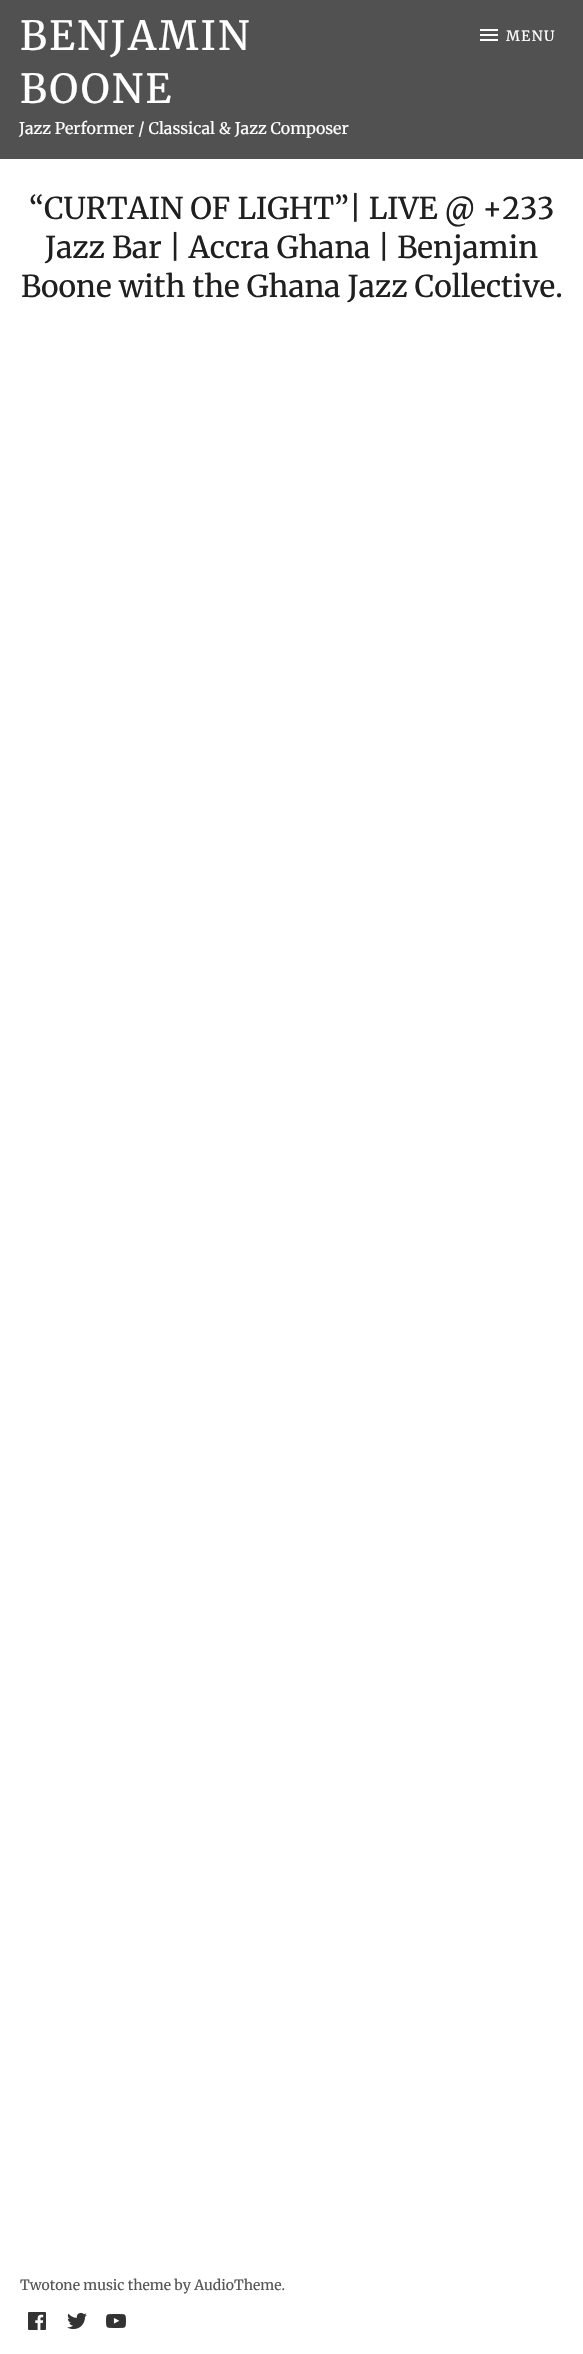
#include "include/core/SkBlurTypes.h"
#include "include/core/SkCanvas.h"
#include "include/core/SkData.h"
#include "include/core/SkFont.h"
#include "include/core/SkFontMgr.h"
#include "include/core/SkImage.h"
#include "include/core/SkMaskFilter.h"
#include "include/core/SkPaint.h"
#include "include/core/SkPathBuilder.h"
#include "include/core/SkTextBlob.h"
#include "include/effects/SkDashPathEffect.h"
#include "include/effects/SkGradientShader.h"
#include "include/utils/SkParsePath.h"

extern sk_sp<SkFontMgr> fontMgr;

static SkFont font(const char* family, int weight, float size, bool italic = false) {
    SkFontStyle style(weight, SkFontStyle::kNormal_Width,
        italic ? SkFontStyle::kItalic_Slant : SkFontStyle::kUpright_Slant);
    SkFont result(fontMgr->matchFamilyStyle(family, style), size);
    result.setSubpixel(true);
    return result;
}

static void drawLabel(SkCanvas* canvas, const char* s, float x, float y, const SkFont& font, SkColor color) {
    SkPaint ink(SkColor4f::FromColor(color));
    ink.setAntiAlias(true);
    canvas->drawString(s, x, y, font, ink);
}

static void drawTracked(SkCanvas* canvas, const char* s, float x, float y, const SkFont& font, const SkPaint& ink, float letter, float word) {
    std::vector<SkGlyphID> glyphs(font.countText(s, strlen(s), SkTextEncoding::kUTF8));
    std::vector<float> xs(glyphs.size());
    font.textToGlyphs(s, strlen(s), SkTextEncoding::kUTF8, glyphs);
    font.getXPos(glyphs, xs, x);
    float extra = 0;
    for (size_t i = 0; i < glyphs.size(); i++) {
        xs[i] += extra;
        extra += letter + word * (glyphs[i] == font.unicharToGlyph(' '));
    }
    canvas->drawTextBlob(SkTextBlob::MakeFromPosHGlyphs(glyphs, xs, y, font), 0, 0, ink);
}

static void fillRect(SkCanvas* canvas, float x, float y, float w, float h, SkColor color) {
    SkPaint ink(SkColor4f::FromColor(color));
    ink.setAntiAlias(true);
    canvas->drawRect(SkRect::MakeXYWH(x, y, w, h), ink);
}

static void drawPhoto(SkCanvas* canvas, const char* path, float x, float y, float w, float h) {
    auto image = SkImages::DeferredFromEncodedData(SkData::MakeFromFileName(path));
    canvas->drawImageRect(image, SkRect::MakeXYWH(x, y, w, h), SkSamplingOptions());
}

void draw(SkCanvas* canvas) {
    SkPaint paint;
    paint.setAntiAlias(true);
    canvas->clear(0xFF515151);
    SkFont font1 = font("Merriweather", 400, 40);
    paint.setColor(0xFFFFFFFF);
    drawTracked(canvas, "BENJAMIN", 20, 50, font1, paint, 2.5f, 0);
    drawTracked(canvas, "BOONE", 20, 103, font1, paint, 2.5f, 0);
    SkFont font2 = font("Merriweather", 400, 16);
    drawLabel(canvas, "Jazz Performer / Classical & Jazz Composer", 19, 134, font2, 0xFFFFFFFF);
    drawPhoto(canvas, "assets/img1.png", 480, 29, 18, 12);
    SkFont font3 = font("Merriweather", 400, 14);
    drawTracked(canvas, "MENU", 506, 41, font3, paint, 1.5f, 0);
    fillRect(canvas, 0, 159, 583, 2195, 0xFFFFFFFF);
    SkFont font4 = font("Merriweather", 400, 30);
    drawLabel(canvas, "“CURTAIN OF LIGHT”| LIVE @ +233", 29, 219, font4, 0xFF1F1F1F);
    drawLabel(canvas, "Jazz Bar | Accra Ghana | Benjamin", 45, 258, font4, 0xFF1F1F1F);
    drawLabel(canvas, "Boone with the Ghana Jazz Collective.", 21, 297, font4, 0xFF1F1F1F);
    drawLabel(canvas, "Twotone music theme by AudioTheme.", 20, 2290, font3, 0xFF555555);
    drawPhoto(canvas, "assets/img2.png", 28, 2312, 18, 18);
    drawPhoto(canvas, "assets/img3.png", 67, 2312, 20, 18);
    drawPhoto(canvas, "assets/img4.png", 106, 2314, 20, 14);
}
